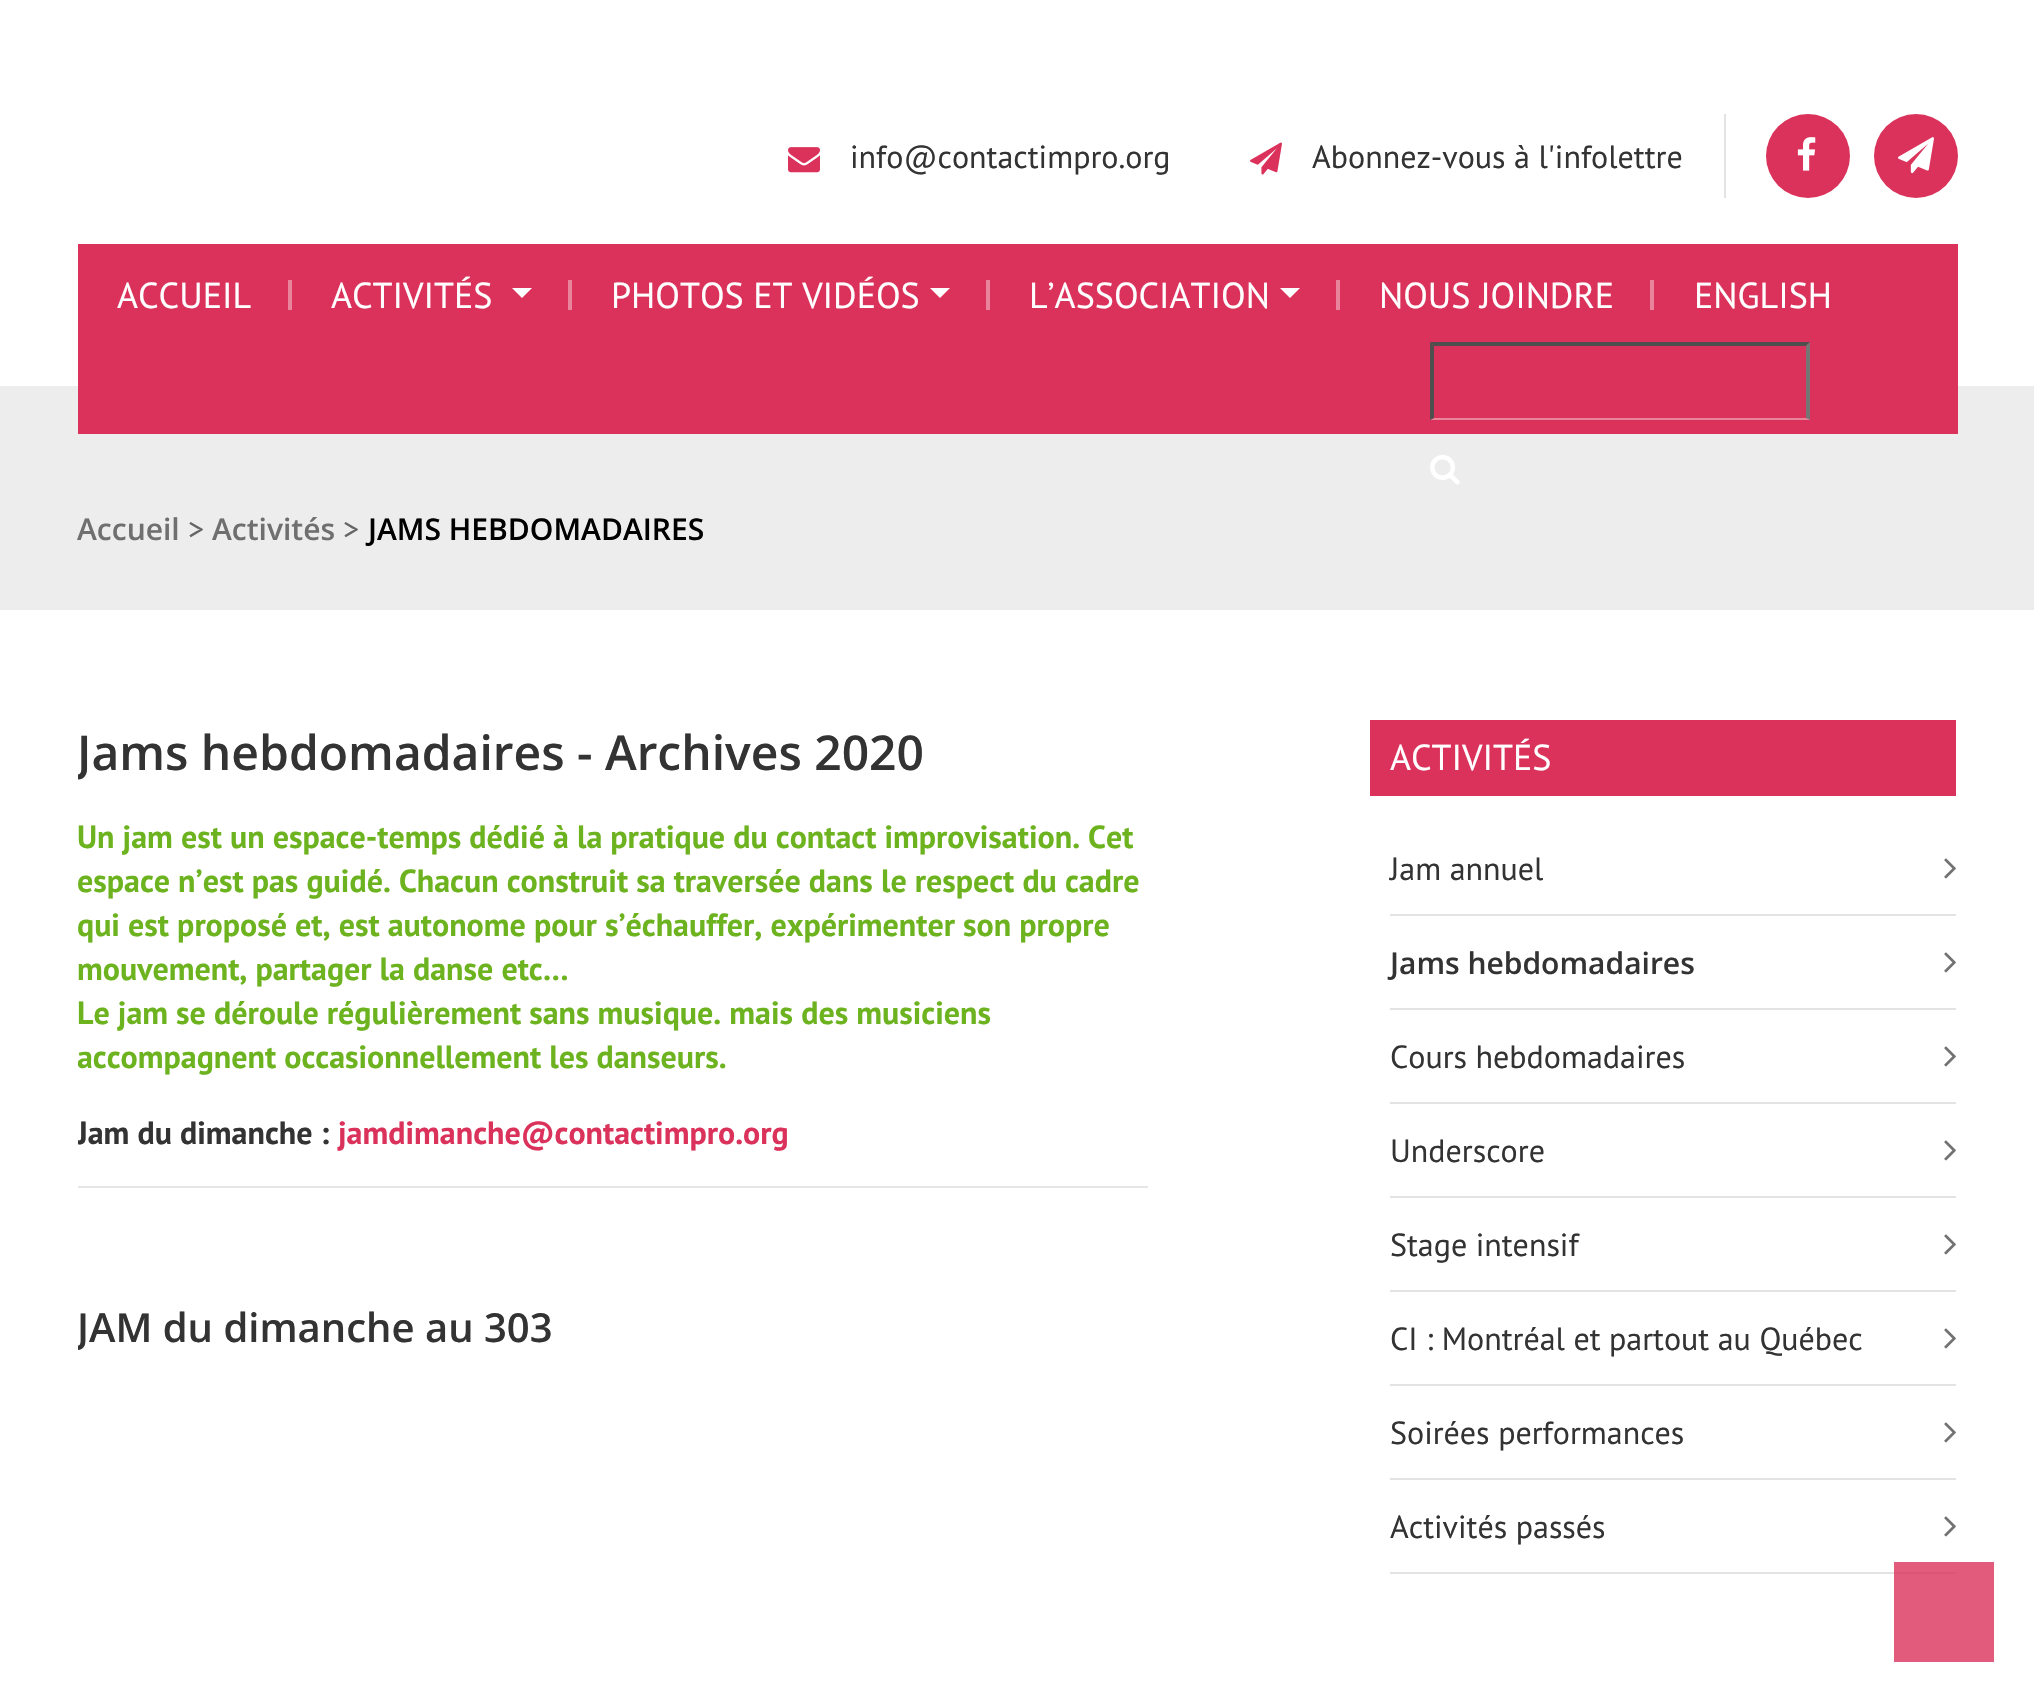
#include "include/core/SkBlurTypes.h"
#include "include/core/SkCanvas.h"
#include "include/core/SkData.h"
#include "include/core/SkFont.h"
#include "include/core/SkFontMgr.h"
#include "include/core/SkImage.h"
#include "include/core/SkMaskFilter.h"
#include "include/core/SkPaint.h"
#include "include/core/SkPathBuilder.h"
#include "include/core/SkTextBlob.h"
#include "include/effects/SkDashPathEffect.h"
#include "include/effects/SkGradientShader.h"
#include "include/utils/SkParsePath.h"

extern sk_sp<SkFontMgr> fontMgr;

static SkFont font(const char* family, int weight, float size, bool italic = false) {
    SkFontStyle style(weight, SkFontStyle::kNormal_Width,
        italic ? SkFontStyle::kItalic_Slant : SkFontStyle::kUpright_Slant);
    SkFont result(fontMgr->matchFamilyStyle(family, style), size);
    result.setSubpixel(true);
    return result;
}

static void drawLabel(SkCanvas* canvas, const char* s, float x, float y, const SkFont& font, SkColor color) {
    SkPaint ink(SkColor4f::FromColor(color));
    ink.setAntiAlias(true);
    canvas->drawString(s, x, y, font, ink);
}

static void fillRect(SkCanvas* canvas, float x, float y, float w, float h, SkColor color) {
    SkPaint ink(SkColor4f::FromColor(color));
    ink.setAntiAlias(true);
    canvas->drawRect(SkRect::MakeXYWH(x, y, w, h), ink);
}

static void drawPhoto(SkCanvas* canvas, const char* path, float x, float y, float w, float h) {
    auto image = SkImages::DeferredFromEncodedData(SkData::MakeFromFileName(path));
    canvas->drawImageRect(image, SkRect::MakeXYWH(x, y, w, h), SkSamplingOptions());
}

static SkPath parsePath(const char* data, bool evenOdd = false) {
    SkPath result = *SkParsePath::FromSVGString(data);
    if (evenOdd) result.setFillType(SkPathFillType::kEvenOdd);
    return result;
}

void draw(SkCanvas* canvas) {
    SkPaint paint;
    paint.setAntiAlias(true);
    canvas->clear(0xFFFFFFFF);
    fillRect(canvas, 1894, 1562, 100, 100, 0xFFE25B7C);
    drawPhoto(canvas, "assets/img1.png", 788, 147, 32, 26);
    SkFont font1 = font("PT Sans", 400, 32);
    drawLabel(canvas, "info@contactimpro.org", 850, 168, font1, 0xFF333333);
    drawPhoto(canvas, "assets/img2.png", 1250, 142, 32, 33);
    drawLabel(canvas, "Abonnez-vous à l'infolettre", 1312, 168, font1, 0xFF333333);
    fillRect(canvas, 1724, 114, 2, 84, 0xFFE3E3E3);
    paint.setColor(0xFFDB325B);
    canvas->drawCircle(1808, 156, 42, paint);
    drawPhoto(canvas, "assets/img3.png", 1797, 137, 19, 34);
    canvas->drawCircle(1916, 156, 42, paint);
    drawPhoto(canvas, "assets/img4.png", 1898, 137, 36, 37);
    fillRect(canvas, 0, 386, 2034, 224, 0xFFEDEDED);
    fillRect(canvas, 78, 244, 1880, 190, 0xFFDB325B);
    SkFont font2 = font("PT Sans", 400, 36);
    drawLabel(canvas, "ACCUEIL", 117, 308, font2, 0xFFFFFFFF);
    fillRect(canvas, 288, 280, 4, 30, 0xFFE9849D);
    drawLabel(canvas, "ACTIVITÉS", 331, 308, font2, 0xFFFFFFFF);
    paint.setColor(0xFFFFFFFF);
    canvas->drawPath(parsePath("M512 288H532L522 298Z"), paint);
    fillRect(canvas, 568, 280, 4, 30, 0xFFE9849D);
    drawLabel(canvas, "PHOTOS ET VIDÉOS", 611, 308, font2, 0xFFFFFFFF);
    canvas->drawPath(parsePath("M930 288H950L940 298Z"), paint);
    fillRect(canvas, 986, 280, 4, 30, 0xFFE9849D);
    drawLabel(canvas, "L’ASSOCIATION", 1029, 308, font2, 0xFFFFFFFF);
    canvas->drawPath(parsePath("M1280 288H1300L1290 298Z"), paint);
    fillRect(canvas, 1336, 280, 4, 30, 0xFFE9849D);
    drawLabel(canvas, "NOUS JOINDRE", 1379, 308, font2, 0xFFFFFFFF);
    fillRect(canvas, 1650, 280, 4, 30, 0xFFE9849D);
    drawLabel(canvas, "ENGLISH", 1694, 308, font2, 0xFFFFFFFF);
    paint.setColor(0xFF4F4F4F);
    canvas->drawPath(parsePath("M1430 342H1810L1806 346H1434Z"), paint);
    paint.setColor(0xFF767676);
    canvas->drawPath(parsePath("M1810 342V420L1806 418V346Z"), paint);
    paint.setColor(0x66FFFFFF);
    canvas->drawPath(parsePath("M1810 420H1430L1434 418H1806Z"), paint);
    paint.setColor(0xFF4F4F4F);
    canvas->drawPath(parsePath("M1430 420V342L1434 346V418Z"), paint);
    drawPhoto(canvas, "assets/img5.png", 1430, 455, 30, 30);
    SkFont font3 = font("Open Sans", 600, 30);
    drawLabel(canvas, "Accueil", 77, 540, font3, 0xFF6F6F6F);
    drawLabel(canvas, ">", 188, 540, font1, 0xFF666666);
    drawLabel(canvas, "Activités", 212, 540, font3, 0xFF6F6F6F);
    drawLabel(canvas, ">", 343, 540, font1, 0xFF666666);
    drawLabel(canvas, "JAMS HEBDOMADAIRES", 368, 540, font3, 0xFF000000);
    canvas->save();
    canvas->clipRect(SkRect::MakeXYWH(78, 720, 1070, 500));
    SkFont font4 = font("Open Sans", 600, 48);
    drawLabel(canvas, "Jams hebdomadaires", 77, 770, font4, 0xFF333333);
    canvas->restore();
    drawLabel(canvas, "- Archives 2020", 577, 770, font4, 0xFF333333);
    SkFont font5 = font("PT Sans", 700, 32);
    drawLabel(canvas, "Un jam est un espace-temps dédié à la pratique du contact improvisation. Cet", 77, 848, font5, 0xFF6CB31F);
    drawLabel(canvas, "espace n’est pas guidé. Chacun construit sa traversée dans le respect du cadre", 77, 892, font5, 0xFF6CB31F);
    drawLabel(canvas, "qui est proposé et, est autonome pour s’échauffer, expérimenter son propre", 77, 936, font5, 0xFF6CB31F);
    drawLabel(canvas, "mouvement, partager la danse etc…", 77, 980, font5, 0xFF6CB31F);
    drawLabel(canvas, "Le jam se déroule régulièrement sans musique. mais des musiciens", 77, 1024, font5, 0xFF6CB31F);
    canvas->save();
    canvas->clipRect(SkRect::MakeXYWH(78, 720, 1070, 500));
    drawLabel(canvas, "accompagnent occasionnellement les danseurs.", 77, 1068, font5, 0xFF6CB31F);
    drawLabel(canvas, "Jam du dimanche :", 77, 1144, font5, 0xFF333333);
    canvas->restore();
    drawLabel(canvas, "jamdimanche@contactimpro.org", 338, 1144, font5, 0xFFDB325B);
    fillRect(canvas, 78, 1186, 1070, 2, 0xFFE6E6E6);
    canvas->save();
    canvas->clipRect(SkRect::MakeXYWH(78, 1300, 1070, 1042));
    SkFont font6 = font("Open Sans", 600, 40);
    drawLabel(canvas, "JAM du dimanche au 303", 77, 1342, font6, 0xFF333333);
    canvas->restore();
    fillRect(canvas, 1370, 720, 586, 76, 0xFFDB325B);
    drawLabel(canvas, "ACTIVITÉS", 1390, 770, font2, 0xFFFFFFFF);
    fillRect(canvas, 1390, 914, 566, 2, 0xFFE3E3E3);
    drawLabel(canvas, "Jam annuel", 1390, 880, font1, 0xFF333333);
    drawPhoto(canvas, "assets/img6.png", 1944, 858, 12, 21);
    fillRect(canvas, 1390, 1008, 566, 2, 0xFFE3E3E3);
    drawLabel(canvas, "Jams hebdomadaires", 1390, 974, font3, 0xFF333333);
    drawPhoto(canvas, "assets/img6.png", 1944, 952, 12, 21);
    fillRect(canvas, 1390, 1102, 566, 2, 0xFFE3E3E3);
    drawLabel(canvas, "Cours hebdomadaires", 1390, 1068, font1, 0xFF333333);
    drawPhoto(canvas, "assets/img6.png", 1944, 1046, 12, 21);
    fillRect(canvas, 1390, 1196, 566, 2, 0xFFE3E3E3);
    drawLabel(canvas, "Underscore", 1390, 1162, font1, 0xFF333333);
    drawPhoto(canvas, "assets/img6.png", 1944, 1140, 12, 21);
    fillRect(canvas, 1390, 1290, 566, 2, 0xFFE3E3E3);
    drawLabel(canvas, "Stage intensif", 1390, 1256, font1, 0xFF333333);
    drawPhoto(canvas, "assets/img6.png", 1944, 1234, 12, 21);
    fillRect(canvas, 1390, 1384, 566, 2, 0xFFE3E3E3);
    drawLabel(canvas, "CI : Montréal et partout au Québec", 1390, 1350, font1, 0xFF333333);
    drawPhoto(canvas, "assets/img6.png", 1944, 1328, 12, 21);
    fillRect(canvas, 1390, 1478, 566, 2, 0xFFE3E3E3);
    drawLabel(canvas, "Soirées performances", 1390, 1444, font1, 0xFF333333);
    drawPhoto(canvas, "assets/img6.png", 1944, 1422, 12, 21);
    fillRect(canvas, 1390, 1572, 504, 2, 0xFFE3E3E3);
    fillRect(canvas, 1894, 1572, 62, 2, 0xFFDD5576);
    drawLabel(canvas, "Activités passés", 1390, 1538, font1, 0xFF333333);
    drawPhoto(canvas, "assets/img6.png", 1944, 1516, 12, 21);
}
